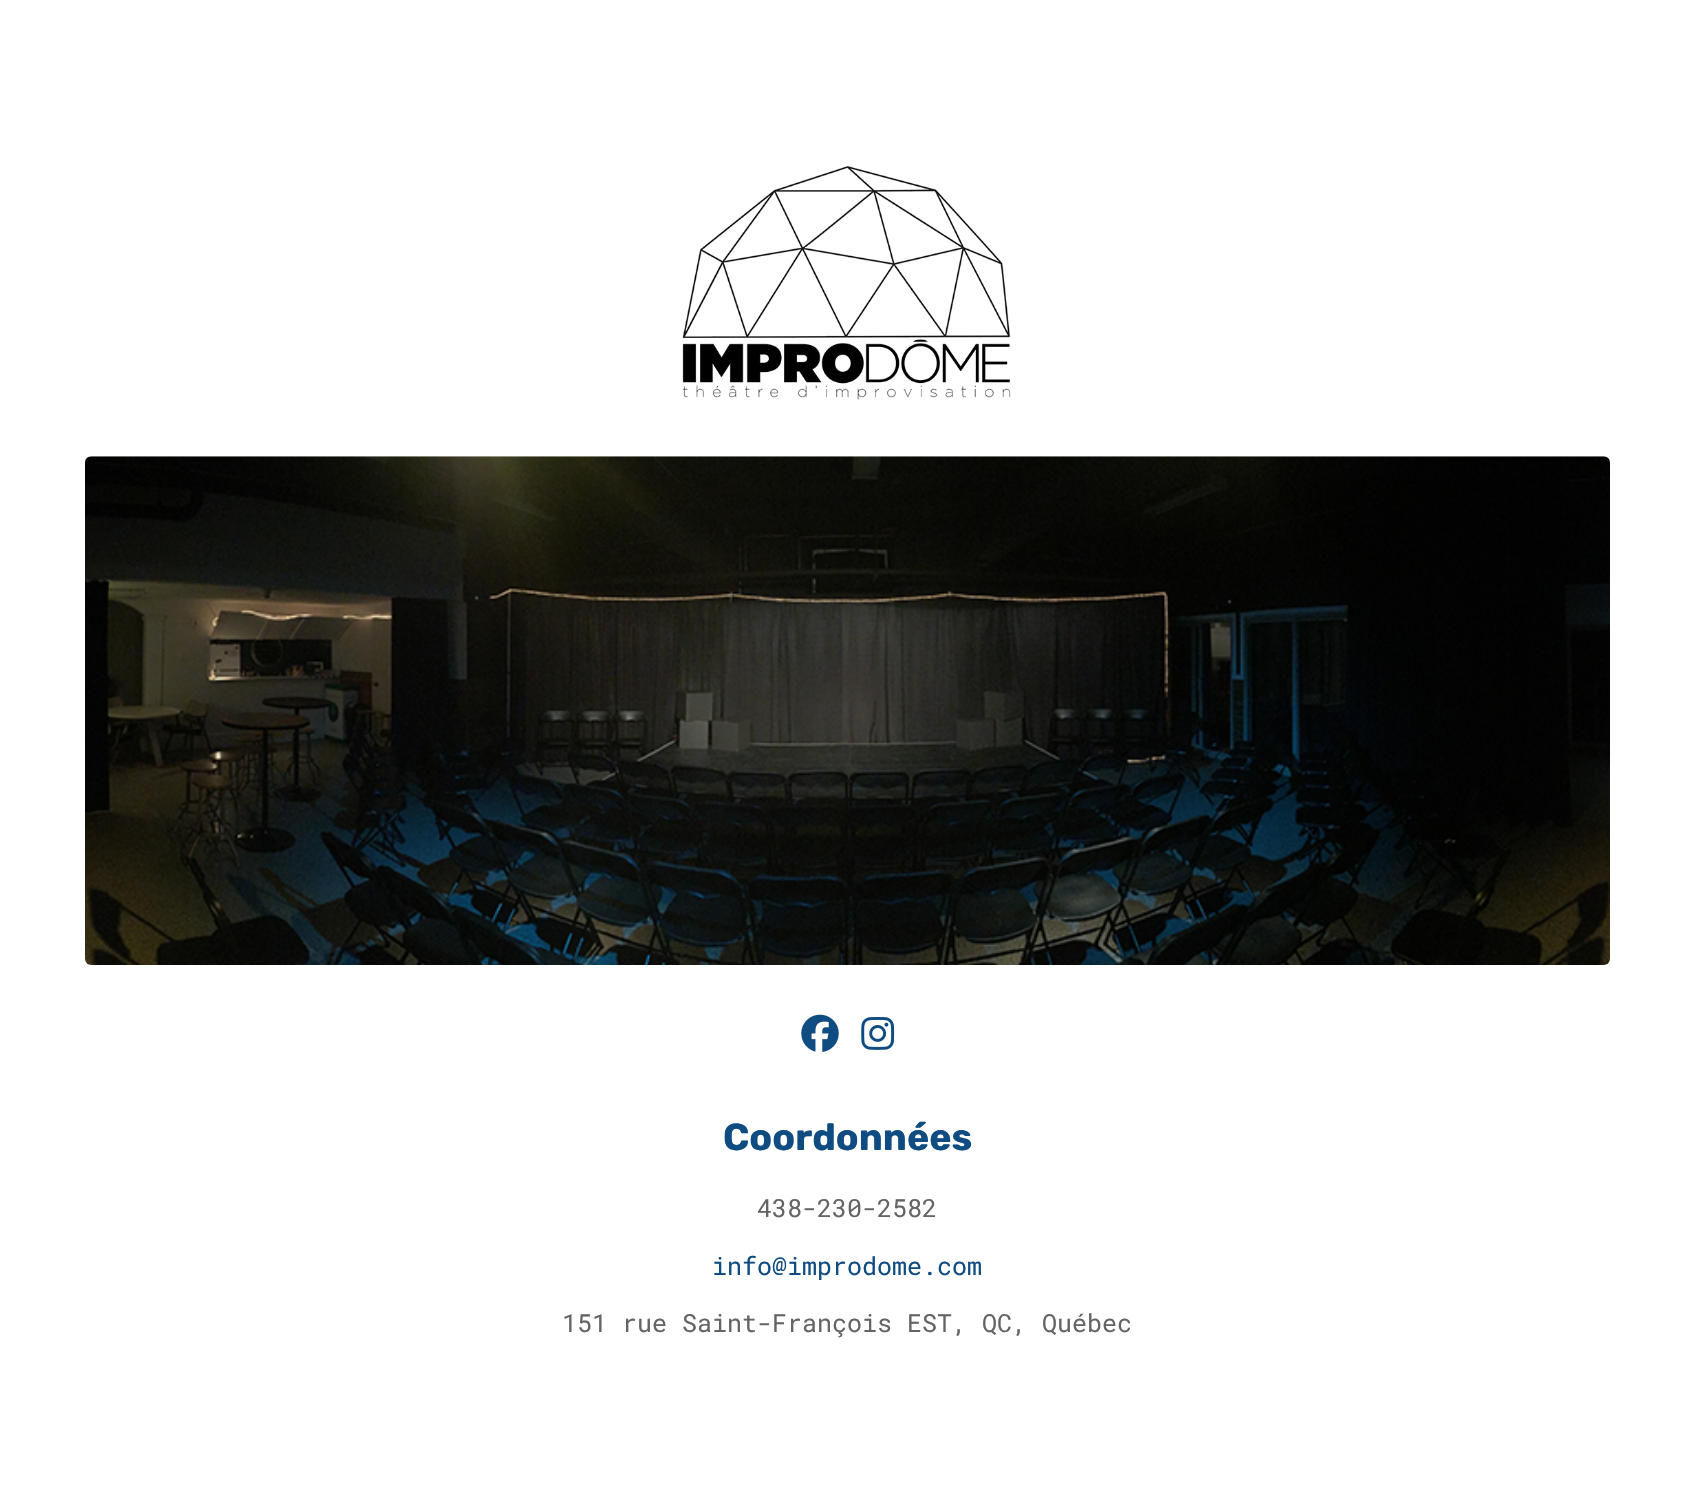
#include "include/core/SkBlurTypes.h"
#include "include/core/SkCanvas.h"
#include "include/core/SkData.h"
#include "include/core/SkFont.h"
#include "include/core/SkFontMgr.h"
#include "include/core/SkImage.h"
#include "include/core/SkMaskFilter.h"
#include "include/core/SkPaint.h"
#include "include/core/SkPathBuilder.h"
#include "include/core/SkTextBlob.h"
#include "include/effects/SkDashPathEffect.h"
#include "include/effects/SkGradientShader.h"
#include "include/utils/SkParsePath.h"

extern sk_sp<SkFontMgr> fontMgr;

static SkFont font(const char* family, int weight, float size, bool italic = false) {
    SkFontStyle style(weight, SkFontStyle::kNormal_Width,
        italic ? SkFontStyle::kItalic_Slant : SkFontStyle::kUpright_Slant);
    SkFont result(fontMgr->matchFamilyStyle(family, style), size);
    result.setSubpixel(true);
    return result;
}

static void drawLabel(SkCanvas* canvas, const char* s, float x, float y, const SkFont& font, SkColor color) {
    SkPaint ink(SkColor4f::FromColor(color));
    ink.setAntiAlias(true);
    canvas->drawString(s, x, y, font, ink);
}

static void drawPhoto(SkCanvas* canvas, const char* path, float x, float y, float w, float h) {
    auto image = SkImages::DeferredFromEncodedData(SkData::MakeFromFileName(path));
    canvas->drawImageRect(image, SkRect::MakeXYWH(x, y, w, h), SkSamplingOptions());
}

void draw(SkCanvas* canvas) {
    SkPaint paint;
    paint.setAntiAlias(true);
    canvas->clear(0xFFFFFFFF);
    drawPhoto(canvas, "assets/img1.png", 682, 166, 329, 234);
    drawPhoto(canvas, "assets/img2.png", 85, 456, 1525, 509);
    drawPhoto(canvas, "assets/img3.png", 801, 1014, 38, 38);
    drawPhoto(canvas, "assets/img4.png", 861, 1017, 34, 33);
    SkFont font1 = font("Rubik", 700, 37.5f);
    drawLabel(canvas, "Coordonnées", 723, 1150, font1, 0xFF0F4C81);
    SkFont font2 = font("Roboto Mono", 400, 25);
    drawLabel(canvas, "438-230-2582", 757, 1217, font2, 0xFF646464);
    drawLabel(canvas, "info@improdome.com", 712, 1275, font2, 0xFF0F4C81);
    drawLabel(canvas, "151 rue Saint-François EST, QC, Québec", 562, 1332, font2, 0xFF646464);
}
